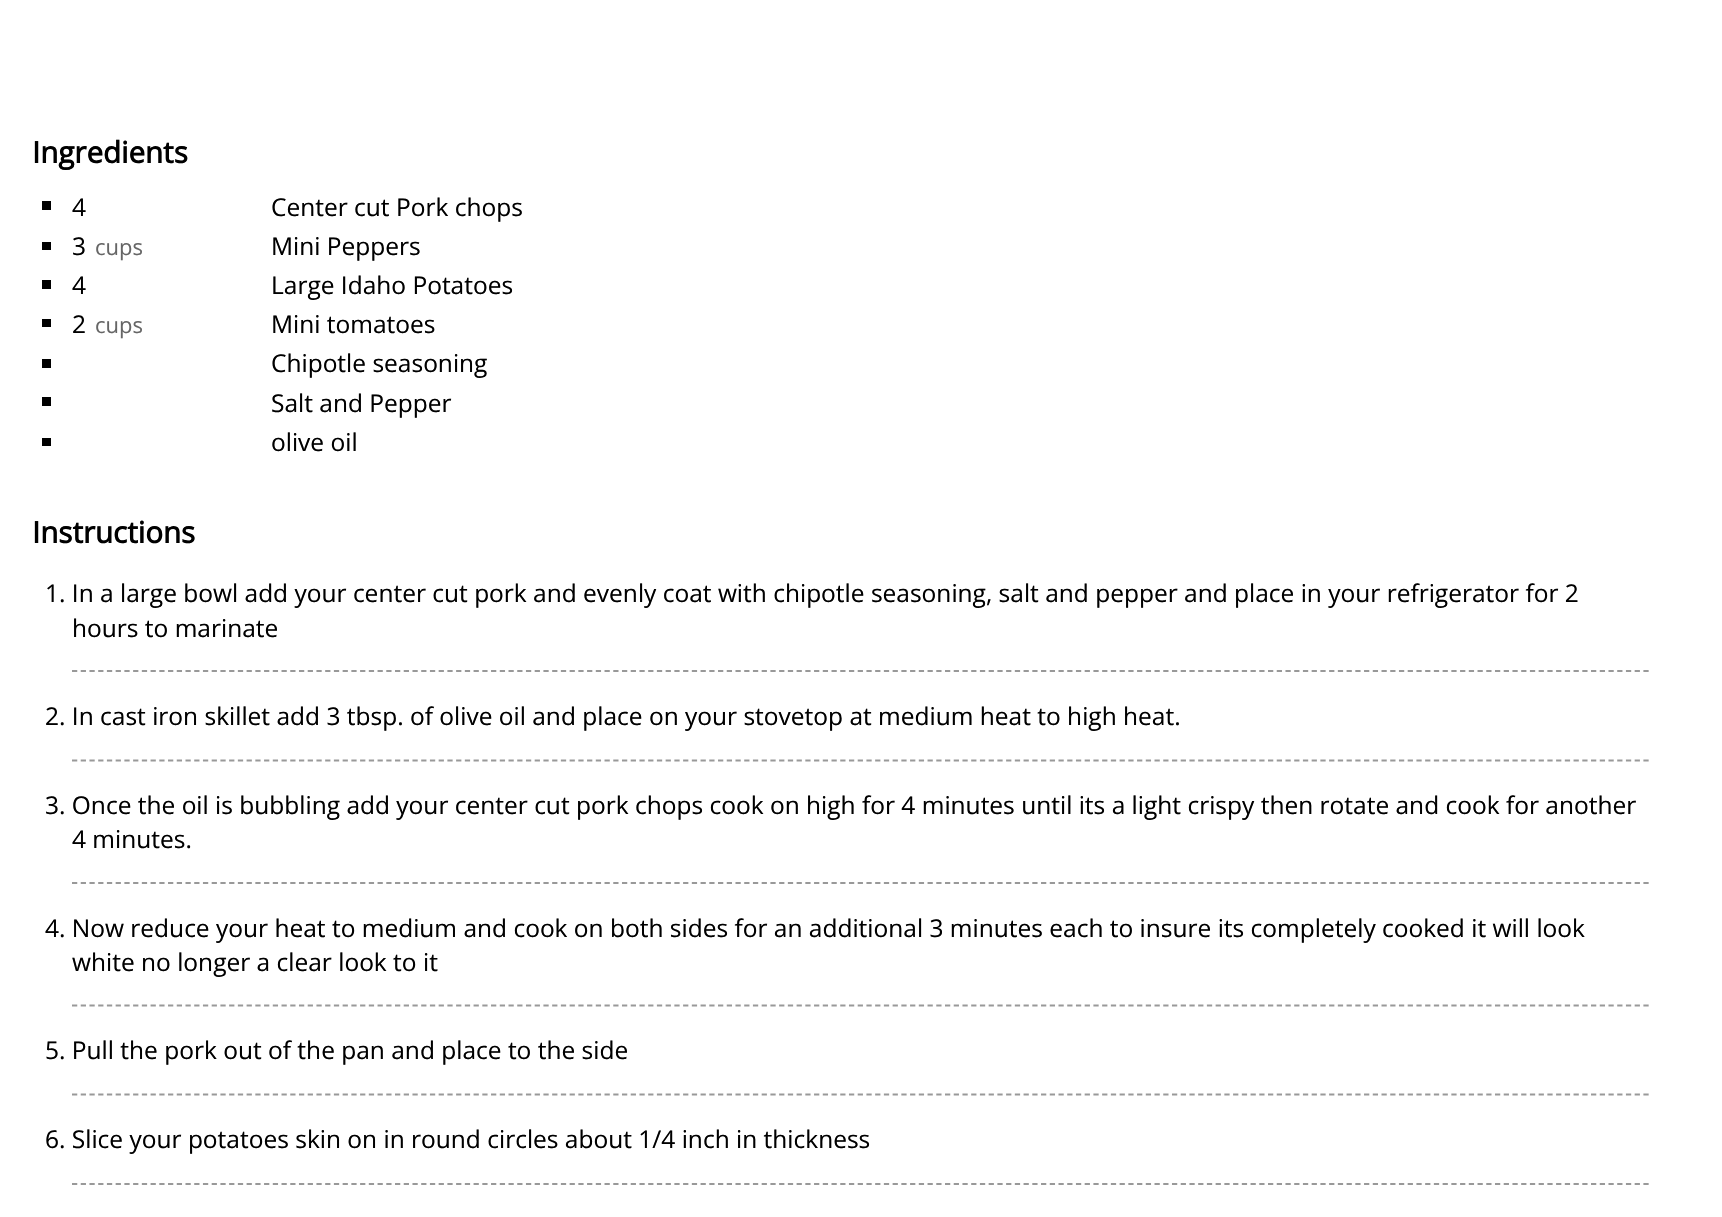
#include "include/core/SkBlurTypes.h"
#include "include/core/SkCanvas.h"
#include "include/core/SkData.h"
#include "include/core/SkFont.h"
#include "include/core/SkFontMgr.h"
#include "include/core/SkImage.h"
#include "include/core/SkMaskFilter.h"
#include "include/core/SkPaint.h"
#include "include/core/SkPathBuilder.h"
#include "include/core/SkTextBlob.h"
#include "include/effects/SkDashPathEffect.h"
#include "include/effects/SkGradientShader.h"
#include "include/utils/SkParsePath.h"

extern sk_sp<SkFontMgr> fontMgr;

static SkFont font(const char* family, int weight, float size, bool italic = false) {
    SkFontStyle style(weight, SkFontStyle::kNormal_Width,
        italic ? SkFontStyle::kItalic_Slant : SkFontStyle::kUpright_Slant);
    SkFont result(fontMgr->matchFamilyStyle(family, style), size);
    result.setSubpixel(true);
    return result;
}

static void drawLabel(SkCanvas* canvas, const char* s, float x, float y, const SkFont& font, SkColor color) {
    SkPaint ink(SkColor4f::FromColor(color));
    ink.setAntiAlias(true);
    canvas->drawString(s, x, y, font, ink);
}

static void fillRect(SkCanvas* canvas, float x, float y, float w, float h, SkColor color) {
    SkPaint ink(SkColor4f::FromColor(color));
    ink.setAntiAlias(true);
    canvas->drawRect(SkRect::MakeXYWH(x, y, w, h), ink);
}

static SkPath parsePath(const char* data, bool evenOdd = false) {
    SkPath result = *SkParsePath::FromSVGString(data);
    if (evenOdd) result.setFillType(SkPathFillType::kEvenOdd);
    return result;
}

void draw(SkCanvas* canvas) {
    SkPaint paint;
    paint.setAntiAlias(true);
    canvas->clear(0xFFFFFFFF);
    SkFont font1 = font("Open Sans", 700, 29.5f);
    drawLabel(canvas, "Ingredients", 32, 163, font1, 0xFF000000);
    fillRect(canvas, 42, 201, 9, 9, 0xFF000000);
    SkFont font2 = font("Open Sans", 400, 24.5f);
    drawLabel(canvas, "4", 72, 216, font2, 0xFF000000);
    drawLabel(canvas, "Center cut Pork chops", 271, 216, font2, 0xFF000000);
    fillRect(canvas, 42, 242, 9, 8, 0xFF000000);
    drawLabel(canvas, "3", 72, 255, font2, 0xFF000000);
    SkFont font3 = font("Open Sans", 400, 22);
    drawLabel(canvas, "cups", 95, 255, font3, 0xFF666666);
    drawLabel(canvas, "Mini Peppers", 271, 255, font2, 0xFF000000);
    fillRect(canvas, 42, 280, 9, 9, 0xFF000000);
    drawLabel(canvas, "4", 72, 294, font2, 0xFF000000);
    drawLabel(canvas, "Large Idaho Potatoes", 271, 294, font2, 0xFF000000);
    fillRect(canvas, 42, 319, 9, 8, 0xFF000000);
    drawLabel(canvas, "2", 72, 333, font2, 0xFF000000);
    drawLabel(canvas, "cups", 95, 333, font3, 0xFF666666);
    drawLabel(canvas, "Mini tomatoes", 271, 333, font2, 0xFF000000);
    fillRect(canvas, 42, 359, 9, 9, 0xFF000000);
    drawLabel(canvas, "Chipotle seasoning", 271, 372, font2, 0xFF000000);
    fillRect(canvas, 42, 397, 9, 9, 0xFF000000);
    drawLabel(canvas, "Salt and Pepper", 271, 412, font2, 0xFF000000);
    fillRect(canvas, 42, 438, 9, 8, 0xFF000000);
    drawLabel(canvas, "olive oil", 271, 451, font2, 0xFF000000);
    drawLabel(canvas, "Instructions", 32, 543, font1, 0xFF000000);
    paint.setStroke(true);
    paint.setStrokeWidth(1.8f);
    paint.setColor(0xFF999999);
    paint.setPathEffect(SkDashPathEffect::Make({{5.25f, 3.48f}}, 0));
    canvas->drawPath(parsePath("M72 671H1650"), paint);
    paint.setPathEffect(nullptr);
    drawLabel(canvas, "1. In a large bowl add your center cut pork and evenly coat with chipotle seasoning, salt and pepper and place in your refrigerator for 2", 45, 602, font2, 0xFF000000);
    drawLabel(canvas, "hours to marinate", 72, 637, font2, 0xFF000000);
    paint.setPathEffect(SkDashPathEffect::Make({{5.25f, 3.48f}}, 0));
    canvas->drawPath(parsePath("M72 760.5H1650"), paint);
    paint.setPathEffect(nullptr);
    drawLabel(canvas, "2. In cast iron skillet add 3 tbsp. of olive oil and place on your stovetop at medium heat to high heat.", 45, 725, font2, 0xFF000000);
    paint.setPathEffect(SkDashPathEffect::Make({{5.25f, 3.48f}}, 0));
    canvas->drawPath(parsePath("M72 883H1650"), paint);
    paint.setPathEffect(nullptr);
    drawLabel(canvas, "3. Once the oil is bubbling add your center cut pork chops cook on high for 4 minutes until its a light crispy then rotate and cook for another", 45, 814, font2, 0xFF000000);
    drawLabel(canvas, "4 minutes.", 72, 848, font2, 0xFF000000);
    paint.setPathEffect(SkDashPathEffect::Make({{5.25f, 3.48f}}, 0));
    canvas->drawPath(parsePath("M72 1005.5H1650"), paint);
    paint.setPathEffect(nullptr);
    drawLabel(canvas, "4. Now reduce your heat to medium and cook on both sides for an additional 3 minutes each to insure its completely cooked it will look", 45, 937, font2, 0xFF000000);
    drawLabel(canvas, "white no longer a clear look to it", 72, 971, font2, 0xFF000000);
    paint.setPathEffect(SkDashPathEffect::Make({{5.25f, 3.48f}}, 0));
    canvas->drawPath(parsePath("M72 1094.5H1650"), paint);
    paint.setPathEffect(nullptr);
    drawLabel(canvas, "5. Pull the pork out of the pan and place to the side", 45, 1059, font2, 0xFF000000);
    paint.setPathEffect(SkDashPathEffect::Make({{5.25f, 3.48f}}, 0));
    canvas->drawPath(parsePath("M72 1184H1650"), paint);
    paint.setPathEffect(nullptr);
    drawLabel(canvas, "6. Slice your potatoes skin on in round circles about 1/4 inch in thickness", 45, 1148, font2, 0xFF000000);
}
